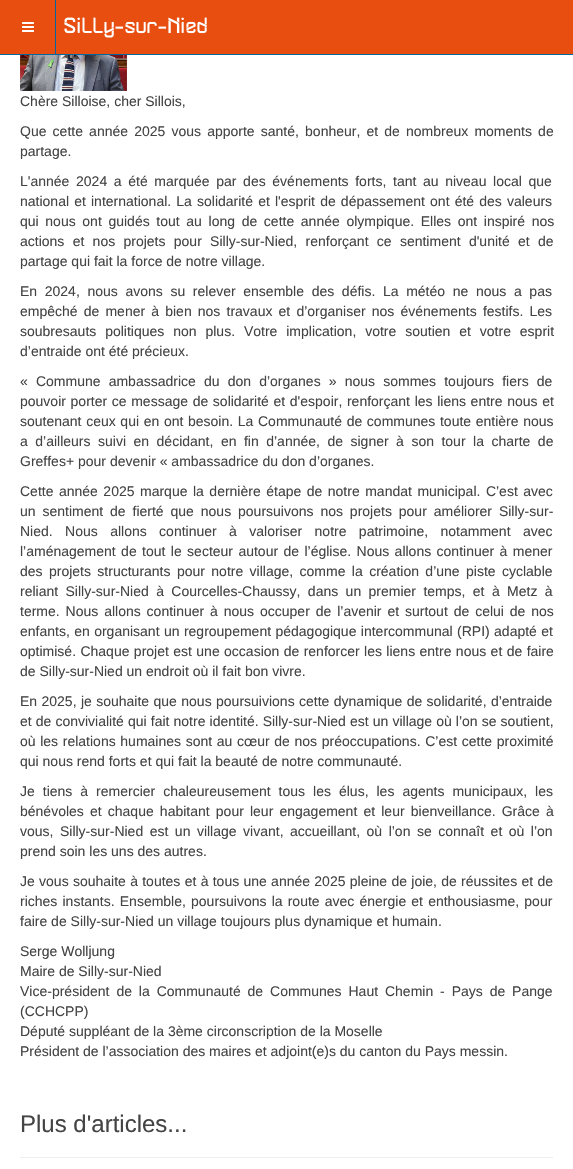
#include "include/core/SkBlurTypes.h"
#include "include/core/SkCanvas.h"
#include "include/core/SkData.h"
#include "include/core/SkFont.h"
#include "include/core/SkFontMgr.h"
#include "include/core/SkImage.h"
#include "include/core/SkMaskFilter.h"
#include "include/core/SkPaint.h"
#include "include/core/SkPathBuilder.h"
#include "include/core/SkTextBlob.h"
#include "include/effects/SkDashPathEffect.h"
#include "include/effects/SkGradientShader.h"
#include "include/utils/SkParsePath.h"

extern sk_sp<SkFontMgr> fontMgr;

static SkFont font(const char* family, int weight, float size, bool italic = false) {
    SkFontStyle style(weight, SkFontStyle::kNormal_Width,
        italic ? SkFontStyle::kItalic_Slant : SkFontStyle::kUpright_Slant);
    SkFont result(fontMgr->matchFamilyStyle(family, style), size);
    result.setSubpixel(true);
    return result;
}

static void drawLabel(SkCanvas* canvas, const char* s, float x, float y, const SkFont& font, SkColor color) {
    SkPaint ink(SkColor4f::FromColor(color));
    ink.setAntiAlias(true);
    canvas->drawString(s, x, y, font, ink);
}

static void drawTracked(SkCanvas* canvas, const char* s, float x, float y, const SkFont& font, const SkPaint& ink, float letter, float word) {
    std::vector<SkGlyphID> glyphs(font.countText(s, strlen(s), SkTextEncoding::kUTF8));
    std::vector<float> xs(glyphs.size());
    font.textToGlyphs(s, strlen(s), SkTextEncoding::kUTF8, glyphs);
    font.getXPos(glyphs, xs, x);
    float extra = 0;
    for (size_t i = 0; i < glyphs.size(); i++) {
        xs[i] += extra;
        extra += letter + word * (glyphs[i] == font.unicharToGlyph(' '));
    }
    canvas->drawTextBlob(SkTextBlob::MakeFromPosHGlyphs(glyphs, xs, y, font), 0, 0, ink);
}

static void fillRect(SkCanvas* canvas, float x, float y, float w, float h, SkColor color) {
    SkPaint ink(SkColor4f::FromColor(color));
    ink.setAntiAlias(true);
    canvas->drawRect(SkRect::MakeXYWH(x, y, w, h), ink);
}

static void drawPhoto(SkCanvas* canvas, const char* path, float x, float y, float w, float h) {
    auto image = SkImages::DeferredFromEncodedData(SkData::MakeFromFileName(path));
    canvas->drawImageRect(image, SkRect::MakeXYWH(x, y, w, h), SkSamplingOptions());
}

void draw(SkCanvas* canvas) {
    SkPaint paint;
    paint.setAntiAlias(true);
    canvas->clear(0xFFFFFFFF);
    fillRect(canvas, 0, 0, 573, 54, 0xFFE84E10);
    fillRect(canvas, 0, 54, 573, 1, 0xFF0067A2);
    drawPhoto(canvas, "assets/img1.png", 22, 22, 12, 10);
    fillRect(canvas, 55, 0, 1, 54, 0xFF0067A2);
    drawPhoto(canvas, "assets/img2.png", 64, 17, 143, 21);
    drawPhoto(canvas, "assets/img3.png", 20, 55, 107, 36);
    SkFont font1 = font("Liberation Sans", 400, 14);
    drawLabel(canvas, "Chère Silloise, cher Sillois,", 20, 106, font1, 0xFF444444);
    paint.setColor(0xFF444444);
    drawTracked(canvas, "Que cette année 2025 vous apporte santé, bonheur, et de nombreux moments de", 20, 136, font1, paint, 0, 2.25f);
    drawLabel(canvas, "partage.", 20, 156, font1, 0xFF444444);
    drawTracked(canvas, "L'année 2024 a été marquée par des événements forts, tant au niveau local que", 20, 186, font1, paint, 0, 2.75f);
    drawTracked(canvas, "national et international. La solidarité et l'esprit de dépassement ont été des valeurs", 20, 206, font1, paint, 0, 1.25f);
    drawTracked(canvas, "qui nous ont guidés tout au long de cette année olympique. Elles ont inspiré nos", 20, 226, font1, paint, 0, 2.75f);
    drawTracked(canvas, "actions et nos projets pour Silly-sur-Nied, renforçant ce sentiment d'unité et de", 20, 246, font1, paint, 0, 4.4f);
    drawLabel(canvas, "partage qui fait la force de notre village.", 20, 266, font1, 0xFF444444);
    drawTracked(canvas, "En 2024, nous avons su relever ensemble des défis. La météo ne nous a pas", 20, 296, font1, paint, 0, 3.75f);
    drawTracked(canvas, "empêché de mener à bien nos travaux et d’organiser nos événements festifs. Les", 20, 316, font1, paint, 0, 2.25f);
    drawTracked(canvas, "soubresauts politiques non plus. Votre implication, votre soutien et votre esprit", 20, 336, font1, paint, 0, 5);
    drawLabel(canvas, "d’entraide ont été précieux.", 20, 356, font1, 0xFF444444);
    drawTracked(canvas, "« Commune ambassadrice du don d’organes » nous sommes toujours fiers de", 20, 386, font1, paint, 0, 4.25f);
    drawTracked(canvas, "pouvoir porter ce message de solidarité et d'espoir, renforçant les liens entre nous et", 20, 406, font1, paint, 0, 0.75f);
    drawTracked(canvas, "soutenant ceux qui en ont besoin. La Communauté de communes toute entière nous", 20, 426, font1, paint, 0, 0.75f);
    drawTracked(canvas, "a d’ailleurs suivi en décidant, en fin d’année, de signer à son tour la charte de", 20, 446, font1, paint, 0, 3.6f);
    drawLabel(canvas, "Greffes+ pour devenir « ambassadrice du don d’organes.", 20, 466, font1, 0xFF444444);
    drawTracked(canvas, "Cette année 2025 marque la dernière étape de notre mandat municipal. C’est avec", 20, 496, font1, paint, 0, 1.6f);
    drawTracked(canvas, "un sentiment de fierté que nous poursuivons nos projets pour améliorer Silly-sur-", 20, 516, font1, paint, 0, 3);
    drawTracked(canvas, "Nied. Nous allons continuer à valoriser notre patrimoine, notamment avec", 20, 536, font1, paint, 0, 8.5f);
    drawTracked(canvas, "l’aménagement de tout le secteur autour de l’église. Nous allons continuer à mener", 20, 556, font1, paint, 0, 1.5f);
    drawTracked(canvas, "des projets structurants pour notre village, comme la création d’une piste cyclable", 20, 576, font1, paint, 0, 2.5f);
    drawTracked(canvas, "reliant Silly-sur-Nied à Courcelles-Chaussy, dans un premier temps, et à Metz à", 20, 596, font1, paint, 0, 3.5f);
    drawTracked(canvas, "terme. Nous allons continuer à nous occuper de l’avenir et surtout de celui de nos", 20, 616, font1, paint, 0, 2);
    drawTracked(canvas, "enfants, en organisant un regroupement pédagogique intercommunal (RPI) adapté et", 20, 636, font1, paint, 0, 0.5f);
    drawTracked(canvas, "optimisé. Chaque projet est une occasion de renforcer les liens entre nous et de faire", 20, 656, font1, paint, 0, 0.5f);
    drawLabel(canvas, "de Silly-sur-Nied un endroit où il fait bon vivre.", 20, 676, font1, 0xFF444444);
    drawTracked(canvas, "En 2025, je souhaite que nous poursuivions cette dynamique de solidarité, d’entraide", 20, 706, font1, paint, 0, 0.5f);
    drawTracked(canvas, "et de convivialité qui fait notre identité. Silly-sur-Nied est un village où l’on se soutient,", 20, 726, font1, paint, 0, 0.2f);
    drawTracked(canvas, "où les relations humaines sont au cœur de nos préoccupations. C’est cette proximité", 20, 746, font1, paint, 0, 0.75f);
    drawLabel(canvas, "qui nous rend forts et qui fait la beauté de notre communauté.", 20, 766, font1, 0xFF444444);
    drawTracked(canvas, "Je tiens à remercier chaleureusement tous les élus, les agents municipaux, les", 20, 796, font1, paint, 0, 4.1f);
    drawTracked(canvas, "bénévoles et chaque habitant pour leur engagement et leur bienveillance. Grâce à", 20, 816, font1, paint, 0, 2.25f);
    drawTracked(canvas, "vous, Silly-sur-Nied est un village vivant, accueillant, où l’on se connaît et où l’on", 20, 836, font1, paint, 0, 2.6f);
    drawLabel(canvas, "prend soin les uns des autres.", 20, 856, font1, 0xFF444444);
    drawTracked(canvas, "Je vous souhaite à toutes et à tous une année 2025 pleine de joie, de réussites et de", 20, 886, font1, paint, 0, 0.4f);
    drawTracked(canvas, "riches instants. Ensemble, poursuivons la route avec énergie et enthousiasme, pour", 20, 906, font1, paint, 0, 1.25f);
    drawLabel(canvas, "faire de Silly-sur-Nied un village toujours plus dynamique et humain.", 20, 926, font1, 0xFF444444);
    drawLabel(canvas, "Serge Wolljung", 20, 956, font1, 0xFF444444);
    drawLabel(canvas, "Maire de Silly-sur-Nied", 20, 976, font1, 0xFF444444);
    drawTracked(canvas, "Vice-président de la Communauté de Communes Haut Chemin - Pays de Pange", 20, 996, font1, paint, 0, 3);
    drawLabel(canvas, "(CCHCPP)", 20, 1016, font1, 0xFF444444);
    drawLabel(canvas, "Député suppléant de la 3ème circonscription de la Moselle", 20, 1036, font1, 0xFF444444);
    drawLabel(canvas, "Président de l’association des maires et adjoint(e)s du canton du Pays messin.", 20, 1056, font1, 0xFF444444);
    SkFont font2 = font("Liberation Sans", 400, 24);
    drawLabel(canvas, "Plus d'articles...", 20, 1132, font2, 0xFF444444);
    fillRect(canvas, 20, 1157, 533, 1, 0xFFEEEEEE);
}
